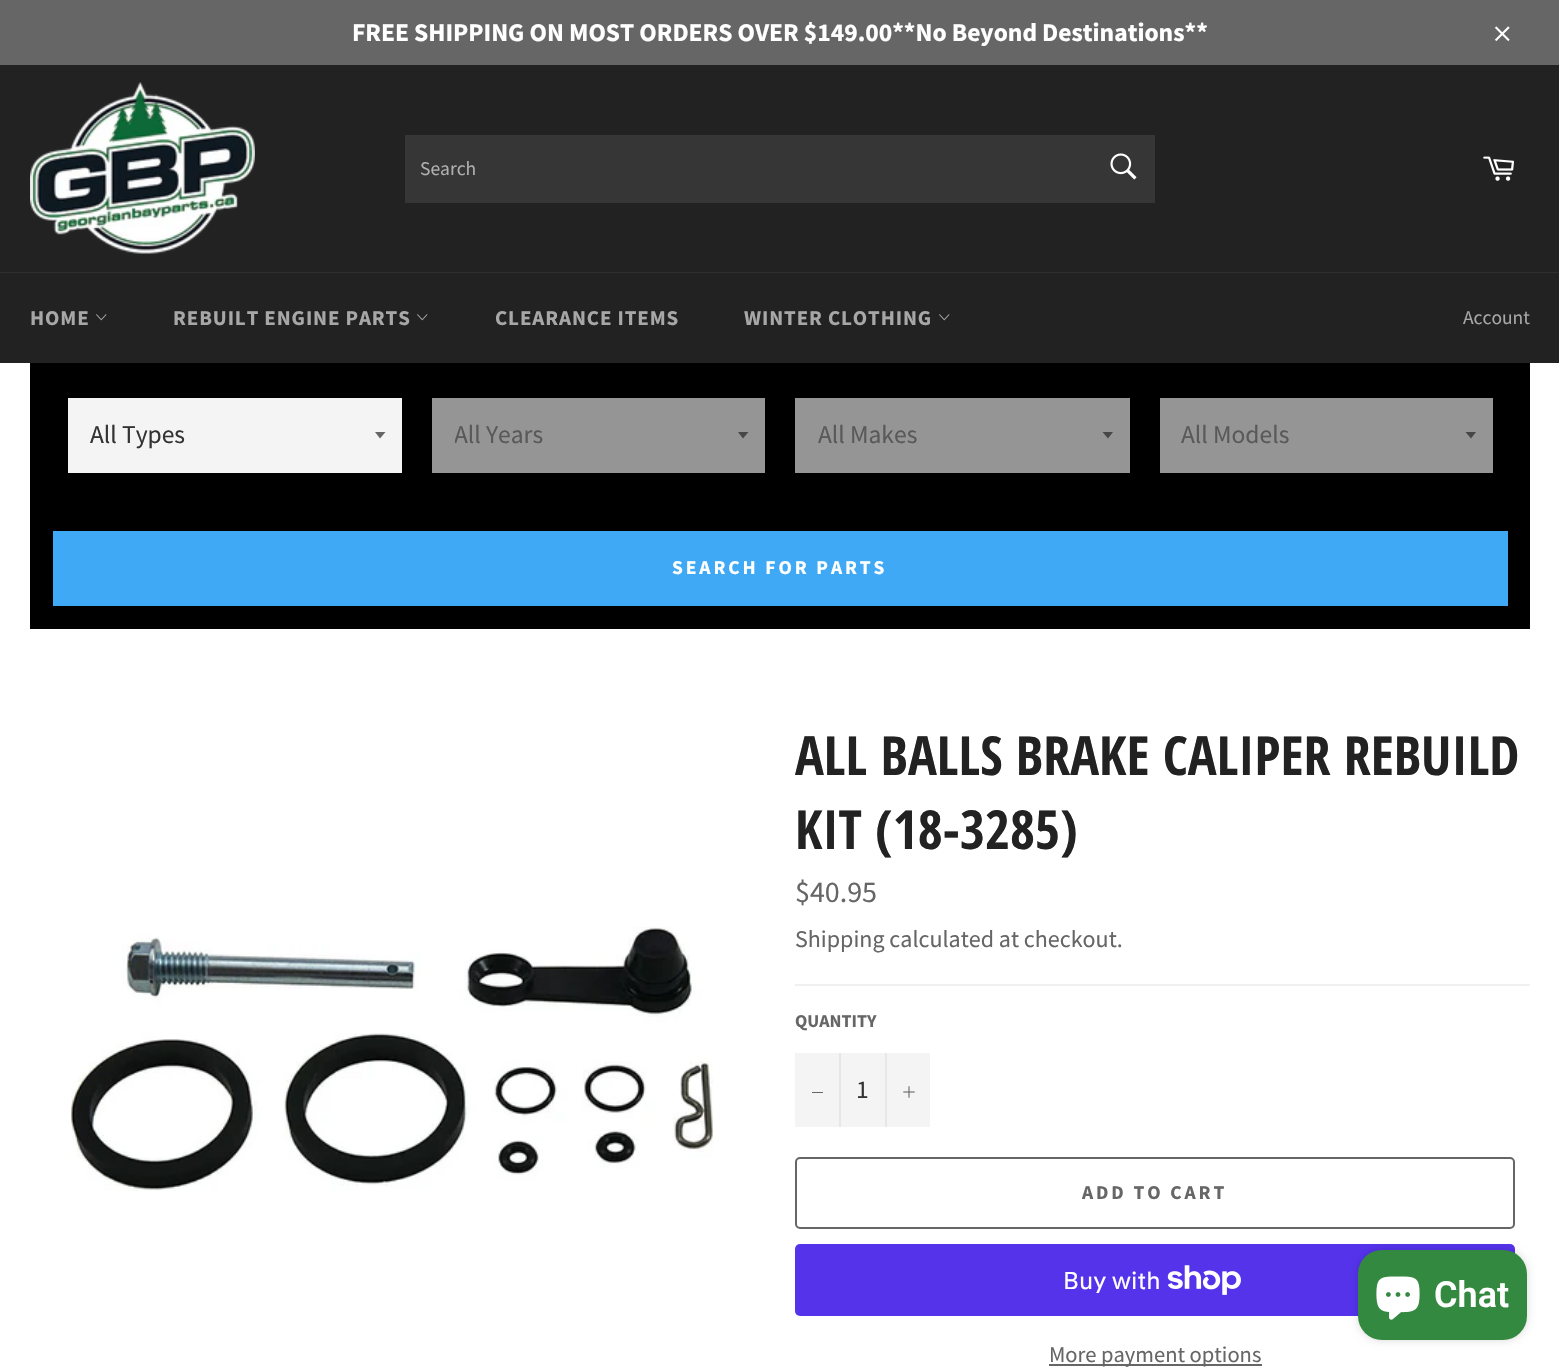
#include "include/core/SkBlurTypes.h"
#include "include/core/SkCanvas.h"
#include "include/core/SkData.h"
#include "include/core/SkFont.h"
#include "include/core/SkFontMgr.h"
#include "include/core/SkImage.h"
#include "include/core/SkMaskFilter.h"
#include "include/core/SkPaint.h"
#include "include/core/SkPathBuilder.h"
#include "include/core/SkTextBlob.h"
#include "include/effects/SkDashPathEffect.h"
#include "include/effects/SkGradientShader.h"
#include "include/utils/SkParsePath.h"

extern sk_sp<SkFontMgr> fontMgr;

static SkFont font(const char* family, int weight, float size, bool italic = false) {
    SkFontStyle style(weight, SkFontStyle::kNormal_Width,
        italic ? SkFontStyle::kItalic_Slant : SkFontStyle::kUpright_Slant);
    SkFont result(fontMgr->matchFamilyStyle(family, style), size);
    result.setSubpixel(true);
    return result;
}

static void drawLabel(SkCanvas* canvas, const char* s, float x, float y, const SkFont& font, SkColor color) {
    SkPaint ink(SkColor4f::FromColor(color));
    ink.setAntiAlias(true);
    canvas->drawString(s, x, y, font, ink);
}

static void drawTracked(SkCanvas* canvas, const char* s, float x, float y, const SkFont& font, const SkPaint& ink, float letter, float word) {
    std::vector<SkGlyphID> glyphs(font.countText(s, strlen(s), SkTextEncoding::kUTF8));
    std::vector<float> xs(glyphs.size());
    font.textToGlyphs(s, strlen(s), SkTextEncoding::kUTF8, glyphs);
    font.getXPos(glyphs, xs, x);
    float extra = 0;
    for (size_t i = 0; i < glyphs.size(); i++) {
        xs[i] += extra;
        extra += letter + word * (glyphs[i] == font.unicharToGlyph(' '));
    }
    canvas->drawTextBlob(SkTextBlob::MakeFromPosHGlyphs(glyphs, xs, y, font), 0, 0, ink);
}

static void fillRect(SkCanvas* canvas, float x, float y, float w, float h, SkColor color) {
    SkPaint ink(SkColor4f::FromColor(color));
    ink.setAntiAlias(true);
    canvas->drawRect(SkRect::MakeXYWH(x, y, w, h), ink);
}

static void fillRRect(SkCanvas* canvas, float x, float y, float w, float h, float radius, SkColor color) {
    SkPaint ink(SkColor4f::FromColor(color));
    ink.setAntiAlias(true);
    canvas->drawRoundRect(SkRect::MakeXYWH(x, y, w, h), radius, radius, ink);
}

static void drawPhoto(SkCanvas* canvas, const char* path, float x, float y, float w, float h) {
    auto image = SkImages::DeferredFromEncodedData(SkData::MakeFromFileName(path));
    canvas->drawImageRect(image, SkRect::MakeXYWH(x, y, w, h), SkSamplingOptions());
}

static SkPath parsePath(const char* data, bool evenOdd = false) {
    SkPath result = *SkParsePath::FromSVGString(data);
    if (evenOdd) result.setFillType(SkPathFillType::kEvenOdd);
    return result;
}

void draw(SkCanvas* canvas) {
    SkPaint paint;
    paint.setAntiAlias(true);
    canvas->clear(0xFF222222);
    fillRect(canvas, 0, 0, 1559, 65, 0xFF666666);
    SkFont font1 = font("Source Sans Pro", 700, 25.5f);
    drawLabel(canvas, "FREE SHIPPING ON MOST ORDERS OVER $149.00**No Beyond Destinations**", 352, 41, font1, 0xFFFFFFFF);
    drawPhoto(canvas, "assets/img1.png", 1494, 26, 16, 16);
    drawPhoto(canvas, "assets/img2.png", 30, 82, 225, 172);
    fillRect(canvas, 405, 135, 750, 68, 0xFF363636);
    SkFont font2 = font("Source Sans Pro", 400, 19.5f);
    drawLabel(canvas, "Search", 420, 175, font2, 0xFFAFAFAF);
    drawPhoto(canvas, "assets/img3.png", 1110, 153, 27, 27);
    drawPhoto(canvas, "assets/img4.png", 1483, 156, 31, 25);
    fillRect(canvas, 0, 272, 1559, 1, 0xFF2F2F2F);
    SkFont font3 = font("Source Sans Pro", 700, 21);
    paint.setColor(0xFFA7A7A7);
    drawTracked(canvas, "HOME", 30, 325, font3, paint, 0.9f, 0);
    drawPhoto(canvas, "assets/img5.png", 96, 314, 11, 7);
    drawTracked(canvas, "REBUILT ENGINE PARTS", 173, 325, font3, paint, 0.9f, 0);
    drawPhoto(canvas, "assets/img5.png", 417, 314, 11, 7);
    drawTracked(canvas, "CLEARANCE ITEMS", 495, 325, font3, paint, 0.9f, 0);
    drawTracked(canvas, "WINTER CLOTHING", 744, 325, font3, paint, 0.9f, 0);
    drawPhoto(canvas, "assets/img5.png", 939, 314, 11, 7);
    drawLabel(canvas, "Account", 1463, 324, font2, 0xFFA7A7A7);
    fillRect(canvas, 0, 363, 1559, 1007, 0xFFFFFFFF);
    fillRect(canvas, 30, 363, 1500, 266, 0xFF000000);
    fillRect(canvas, 68, 398, 334, 75, 0xFFF4F4F4);
    paint.setColor(0xFF666666);
    canvas->drawPath(parsePath("M375 432L380 438.5L385.5 432Z"), paint);
    SkFont font4 = font("Source Sans Pro", 400, 25.5f);
    drawLabel(canvas, "All Types", 90, 443, font4, 0xFF333333);
    fillRect(canvas, 432, 398, 333, 75, 0xFF959595);
    paint.setColor(0xFF474747);
    canvas->drawPath(parsePath("M738 432L743 438.5L748.5 432Z"), paint);
    canvas->save();
    canvas->clipRect(SkRect::MakeXYWH(455, 417, 268, 36));
    drawLabel(canvas, "All Years", 454, 443, font4, 0xFF595959);
    canvas->restore();
    fillRect(canvas, 795, 398, 335, 75, 0xFF959595);
    canvas->drawPath(parsePath("M1102.5 432L1108 438.5L1113 432Z"), paint);
    drawLabel(canvas, "All Makes", 818, 443, font4, 0xFF595959);
    fillRect(canvas, 1160, 398, 333, 75, 0xFF959595);
    canvas->drawPath(parsePath("M1465.5 432L1471 438.5L1476 432Z"), paint);
    drawLabel(canvas, "All Models", 1181, 443, font4, 0xFF595959);
    fillRect(canvas, 53, 531, 1455, 75, 0xFF3FA9F5);
    SkFont font5 = font("Source Sans Pro", 700, 19.5f);
    paint.setColor(0xFFFFFFFF);
    drawTracked(canvas, "SEARCH FOR PARTS", 672, 574, font5, paint, 2.9f, 0);
    drawPhoto(canvas, "assets/img6.png", 71, 927, 643, 264);
    SkFont font6 = font("Open Sans Condensed", 700, 54);
    drawLabel(canvas, "ALL BALLS BRAKE CALIPER REBUILD", 795, 775, font6, 0xFF222222);
    drawLabel(canvas, "KIT (18-3285)", 795, 849, font6, 0xFF222222);
    SkFont font7 = font("Source Sans Pro", 400, 30);
    drawLabel(canvas, "$40.95", 795, 902, font7, 0xFF666666);
    SkFont font8 = font("Source Sans Pro", 400, 24);
    drawLabel(canvas, "Shipping calculated at checkout.", 795, 947, font8, 0xFF666666);
    fillRect(canvas, 795, 984, 735, 2, 0xFFF0F0F0);
    SkFont font9 = font("Source Sans Pro", 700, 18);
    drawLabel(canvas, "QUANTITY", 795, 1027, font9, 0xFF666666);
    fillRect(canvas, 795, 1053, 135, 74, 0xFFF4F4F4);
    fillRect(canvas, 839, 1053, 2, 74, 0xFFE7E7E7);
    fillRect(canvas, 812, 1092, 11, 1, 0xFF666666);
    drawLabel(canvas, "1", 856, 1098, font4, 0xFF333333);
    fillRect(canvas, 885, 1053, 2, 74, 0xFFE7E7E7);
    drawPhoto(canvas, "assets/img7.png", 903, 1086, 12, 12);
    paint.setStroke(true);
    paint.setStrokeWidth(2);
    paint.setColor(0xFF666666);
    canvas->drawRoundRect(SkRect::MakeXYWH(796, 1158, 718, 70), 4, 4, paint);
    paint.setStroke(false);
    drawTracked(canvas, "ADD TO CART", 1082, 1199, font5, paint, 2.9f, 0);
    fillRRect(canvas, 795, 1244, 720, 72, 5, 0xFF5433EB);
    SkFont font10 = font("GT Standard", 400, 24);
    drawLabel(canvas, "Buy with", 1063, 1289, font10, 0xFFFFFFFF);
    drawPhoto(canvas, "assets/img8.png", 1167, 1265, 74, 30);
    fillRect(canvas, 1049, 1364, 213, 2, 0xFF666666);
    SkFont font11 = font("Source Sans Pro", 400, 22.5f);
    drawLabel(canvas, "More payment options", 1049, 1362, font11, 0xFF666666);
    paint.setColor(0x26000000);
    paint.setMaskFilter(SkMaskFilter::MakeBlur(kNormal_SkBlurStyle, 4));
    canvas->drawRoundRect(SkRect::MakeXYWH(1358, 1250, 169, 90), 24, 24, paint);
    paint.setMaskFilter(nullptr);
    fillRRect(canvas, 1358, 1250, 169, 90, 24, 0xFF338940);
    drawPhoto(canvas, "assets/img9.png", 1376, 1276, 44, 44);
    SkFont font12 = font("Roboto", 600, 36);
    drawLabel(canvas, "Chat", 1434, 1307, font12, 0xFFFFFFFF);
}
